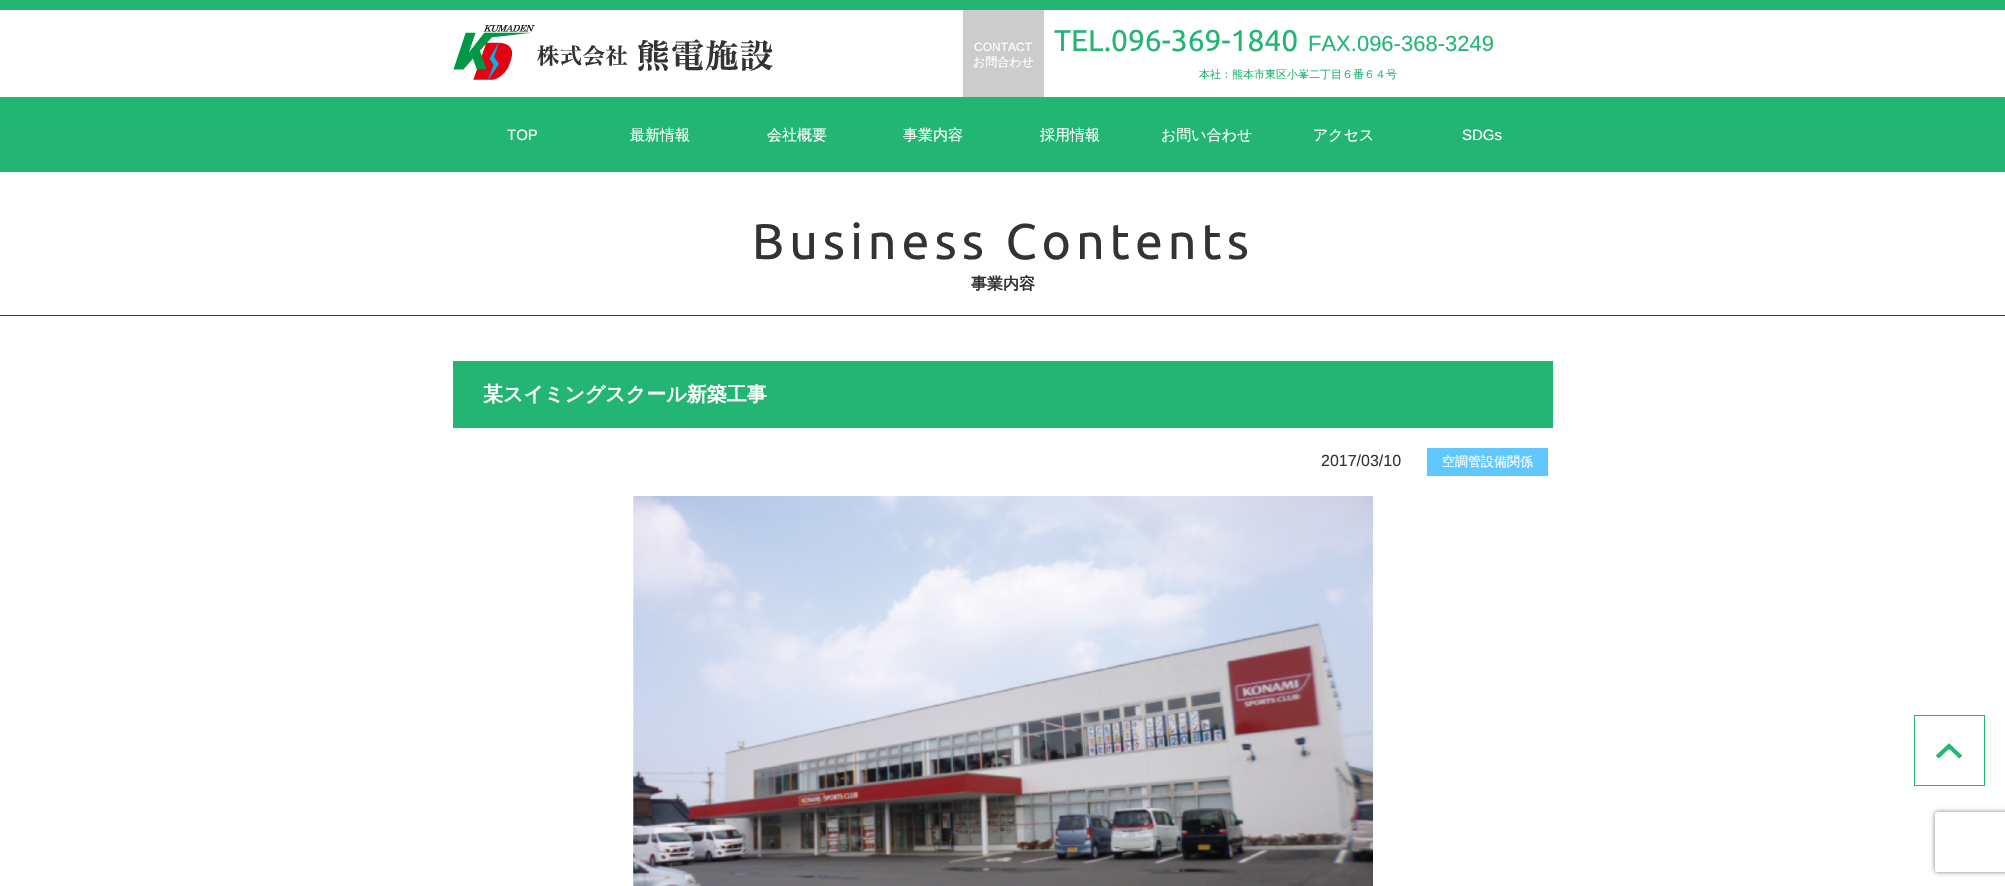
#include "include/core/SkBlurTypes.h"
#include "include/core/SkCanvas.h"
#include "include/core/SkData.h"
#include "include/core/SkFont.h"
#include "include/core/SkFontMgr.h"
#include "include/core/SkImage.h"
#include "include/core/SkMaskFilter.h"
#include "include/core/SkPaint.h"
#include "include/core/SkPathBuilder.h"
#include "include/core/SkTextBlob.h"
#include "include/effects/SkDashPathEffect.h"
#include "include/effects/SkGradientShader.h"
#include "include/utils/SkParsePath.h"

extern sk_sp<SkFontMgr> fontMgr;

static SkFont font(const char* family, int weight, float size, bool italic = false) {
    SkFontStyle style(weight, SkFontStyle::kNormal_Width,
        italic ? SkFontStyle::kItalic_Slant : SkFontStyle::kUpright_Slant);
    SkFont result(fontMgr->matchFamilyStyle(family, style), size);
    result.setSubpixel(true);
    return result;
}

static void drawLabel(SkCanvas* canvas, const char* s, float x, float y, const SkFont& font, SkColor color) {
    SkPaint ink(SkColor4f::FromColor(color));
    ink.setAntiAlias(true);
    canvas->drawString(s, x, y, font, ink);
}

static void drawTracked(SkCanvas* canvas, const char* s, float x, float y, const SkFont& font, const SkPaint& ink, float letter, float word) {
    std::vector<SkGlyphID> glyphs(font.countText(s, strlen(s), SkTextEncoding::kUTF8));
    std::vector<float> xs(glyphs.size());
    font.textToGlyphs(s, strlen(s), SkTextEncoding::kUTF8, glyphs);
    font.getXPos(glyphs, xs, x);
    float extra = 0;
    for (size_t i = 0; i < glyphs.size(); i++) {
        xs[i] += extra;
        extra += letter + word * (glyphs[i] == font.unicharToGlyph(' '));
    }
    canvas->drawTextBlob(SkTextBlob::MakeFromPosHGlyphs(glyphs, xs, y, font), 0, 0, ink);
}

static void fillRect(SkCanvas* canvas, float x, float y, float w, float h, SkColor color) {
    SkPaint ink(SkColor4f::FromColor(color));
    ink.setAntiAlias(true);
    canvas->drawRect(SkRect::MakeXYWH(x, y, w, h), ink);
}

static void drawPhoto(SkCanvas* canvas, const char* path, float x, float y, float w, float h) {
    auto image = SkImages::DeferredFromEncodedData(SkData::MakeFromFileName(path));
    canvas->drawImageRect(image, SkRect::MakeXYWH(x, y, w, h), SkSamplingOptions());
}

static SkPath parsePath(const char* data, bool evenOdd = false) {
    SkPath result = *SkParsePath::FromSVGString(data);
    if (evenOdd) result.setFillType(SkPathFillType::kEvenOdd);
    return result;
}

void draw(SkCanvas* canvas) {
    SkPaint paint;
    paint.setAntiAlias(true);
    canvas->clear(0xFFFFFFFF);
    fillRect(canvas, 0, 0, 2005, 10, 0xFF22B573);
    drawPhoto(canvas, "assets/img1.png", 453, 25, 320, 55);
    fillRect(canvas, 963, 10, 81, 87, 0xFFCCCCCC);
    SkFont font1 = font("Liberation Sans", 400, 12);
    drawLabel(canvas, "CONTACT", 974, 51, font1, 0xFFFFFFFF);
    SkFont font2 = font("WenQuanYi Zen Hei", 500, 12);
    drawLabel(canvas, "お問合わせ", 973, 66, font2, 0xFFFFFFFF);
    SkFont font3 = font("Ubuntu", 400, 30);
    drawLabel(canvas, "TEL.096-369-1840", 1054, 51, font3, 0xFF22B573);
    SkFont font4 = font("Liberation Sans", 400, 22);
    drawLabel(canvas, "FAX.096-368-3249", 1308, 51, font4, 0xFF22B573);
    SkFont font5 = font("WenQuanYi Zen Hei", 500, 11);
    drawLabel(canvas, "本社：熊本市東区小峯二丁目６番６４号", 1199, 78, font5, 0xFF22B573);
    fillRect(canvas, 0, 97, 2005, 75, 0xFF22B573);
    SkFont font6 = font("Liberation Sans", 400, 15);
    drawLabel(canvas, "TOP", 507, 140, font6, 0xFFFFFFFF);
    SkFont font7 = font("WenQuanYi Zen Hei", 500, 15);
    drawLabel(canvas, "最新情報", 630, 140, font7, 0xFFFFFFFF);
    drawLabel(canvas, "会社概要", 767, 140, font7, 0xFFFFFFFF);
    drawLabel(canvas, "事業内容", 903, 140, font7, 0xFFFFFFFF);
    drawLabel(canvas, "採用情報", 1040, 140, font7, 0xFFFFFFFF);
    drawLabel(canvas, "お問い合わせ", 1161, 140, font7, 0xFFFFFFFF);
    drawLabel(canvas, "アクセス", 1313, 140, font7, 0xFFFFFFFF);
    drawLabel(canvas, "SDGs", 1462, 140, font6, 0xFFFFFFFF);
    fillRect(canvas, 0, 315, 2005, 1, 0xFF333333);
    SkFont font8 = font("Ubuntu", 400, 50);
    paint.setColor(0xFF333333);
    drawTracked(canvas, "Business Contents", 752, 259, font8, paint, 5, 0);
    SkFont font9 = font("WenQuanYi Zen Hei", 700, 16);
    drawLabel(canvas, "事業内容", 971, 289, font9, 0xFF333333);
    fillRect(canvas, 453, 361, 1100, 67, 0xFF22B573);
    SkFont font10 = font("WenQuanYi Zen Hei", 700, 20);
    drawLabel(canvas, "某スイミングスクール新築工事", 483, 401, font10, 0xFFFFFFFF);
    SkFont font11 = font("Liberation Sans", 400, 16);
    drawLabel(canvas, "2017/03/10", 1321, 466, font11, 0xFF333333);
    fillRect(canvas, 1427, 448, 121, 28, 0xFF60C8FF);
    SkFont font12 = font("WenQuanYi Zen Hei", 500, 13);
    drawLabel(canvas, "空調管設備関係", 1442, 466, font12, 0xFFFFFFFF);
    drawPhoto(canvas, "assets/img2.png", 633, 496, 740, 390);
    drawPhoto(canvas, "assets/img3.png", 1914, 715, 71, 71);
    canvas->save();
    canvas->clipPath(parsePath("M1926 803H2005V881H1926ZM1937 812H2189C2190 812 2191 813 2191 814V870C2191 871 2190 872 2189 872H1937C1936 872 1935 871 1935 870V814C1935 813 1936 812 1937 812Z", true), true);
    paint.setColor(0xFF808080);
    paint.setMaskFilter(SkMaskFilter::MakeBlur(kNormal_SkBlurStyle, 2.5f));
    canvas->drawRoundRect(SkRect::MakeXYWH(1935, 812, 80, 60), 2, 2, paint);
    paint.setMaskFilter(nullptr);
    canvas->restore();
}
